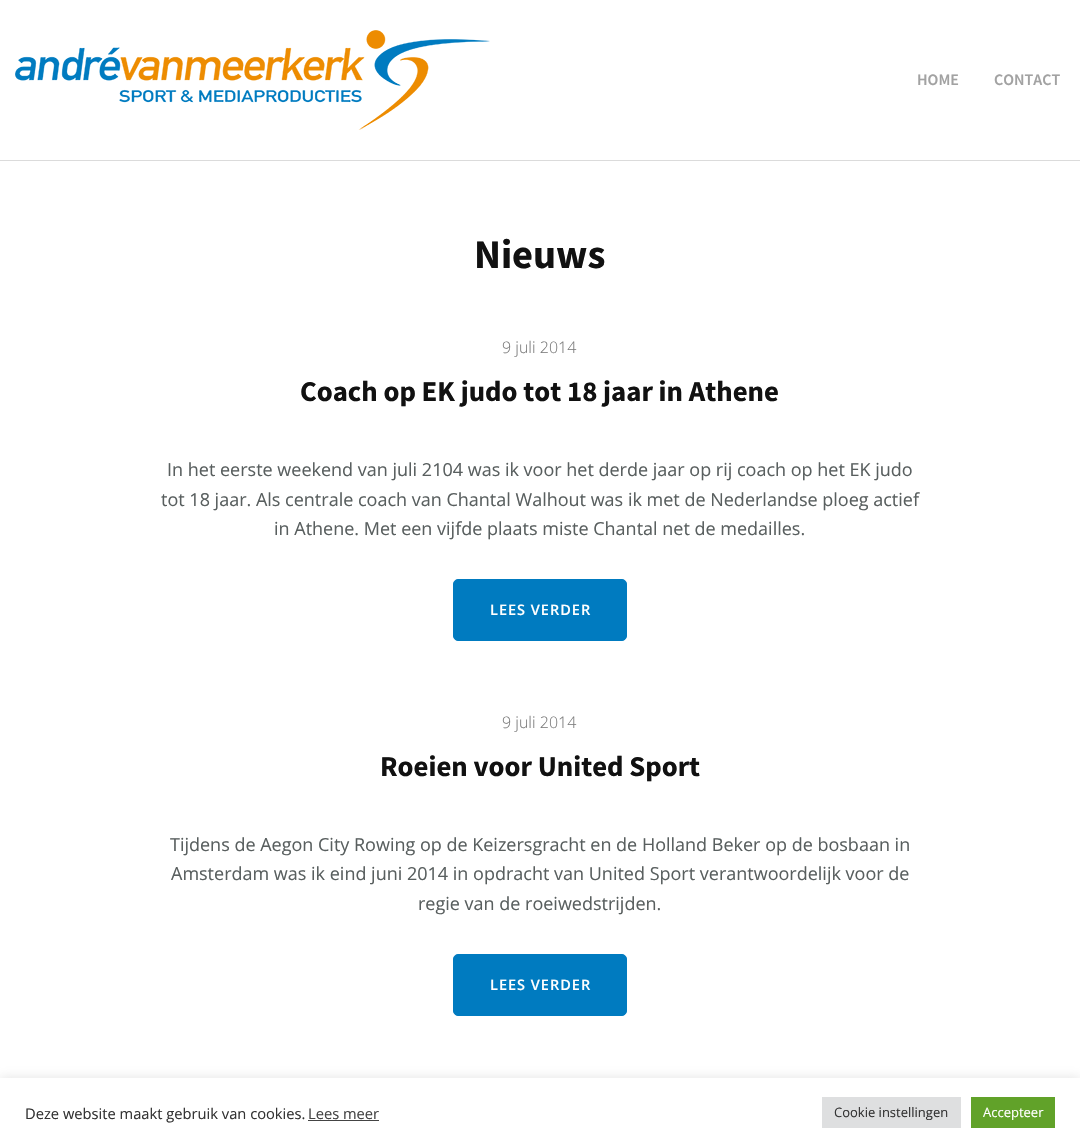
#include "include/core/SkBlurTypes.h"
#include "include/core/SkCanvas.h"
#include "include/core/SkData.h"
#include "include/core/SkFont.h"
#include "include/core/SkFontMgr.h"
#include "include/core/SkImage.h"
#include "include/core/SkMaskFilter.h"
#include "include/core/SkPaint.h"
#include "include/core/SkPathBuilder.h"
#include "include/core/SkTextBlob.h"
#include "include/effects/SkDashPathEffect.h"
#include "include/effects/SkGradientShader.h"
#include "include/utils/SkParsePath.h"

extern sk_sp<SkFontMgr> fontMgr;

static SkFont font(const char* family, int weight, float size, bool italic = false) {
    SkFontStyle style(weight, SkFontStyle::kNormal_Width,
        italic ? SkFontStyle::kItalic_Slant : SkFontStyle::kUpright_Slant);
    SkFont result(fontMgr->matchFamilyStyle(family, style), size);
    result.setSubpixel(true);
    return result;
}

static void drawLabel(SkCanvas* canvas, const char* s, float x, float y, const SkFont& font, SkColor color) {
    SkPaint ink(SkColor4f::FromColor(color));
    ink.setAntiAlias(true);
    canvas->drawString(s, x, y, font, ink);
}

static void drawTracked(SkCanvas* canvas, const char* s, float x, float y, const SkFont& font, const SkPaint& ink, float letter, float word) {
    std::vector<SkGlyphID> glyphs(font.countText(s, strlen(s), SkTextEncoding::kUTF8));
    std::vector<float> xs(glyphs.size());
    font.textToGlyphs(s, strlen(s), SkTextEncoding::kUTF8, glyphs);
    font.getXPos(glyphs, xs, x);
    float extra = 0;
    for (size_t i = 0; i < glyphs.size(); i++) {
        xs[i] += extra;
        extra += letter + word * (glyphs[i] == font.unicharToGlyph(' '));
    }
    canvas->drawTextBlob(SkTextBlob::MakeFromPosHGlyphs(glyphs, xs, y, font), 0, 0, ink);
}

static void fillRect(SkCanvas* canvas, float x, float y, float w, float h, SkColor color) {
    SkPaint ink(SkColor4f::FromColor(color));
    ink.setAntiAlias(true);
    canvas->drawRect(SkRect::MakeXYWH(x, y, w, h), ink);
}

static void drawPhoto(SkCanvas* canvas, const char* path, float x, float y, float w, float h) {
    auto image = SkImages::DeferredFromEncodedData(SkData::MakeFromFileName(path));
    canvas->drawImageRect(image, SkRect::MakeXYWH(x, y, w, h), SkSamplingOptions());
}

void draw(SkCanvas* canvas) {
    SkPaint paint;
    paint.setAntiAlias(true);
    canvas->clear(0xFFFFFFFF);
    fillRect(canvas, 0, 160, 1080, 1, 0xFFDBDBDB);
    drawPhoto(canvas, "assets/img1.png", 15, 30, 475, 100);
    SkFont font1 = font("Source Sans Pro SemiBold", 600, 16);
    drawLabel(canvas, "HOME", 917, 85, font1, 0xFFA2A2A2);
    drawLabel(canvas, "CONTACT", 994, 85, font1, 0xFFA2A2A2);
    SkFont font2 = font("Source Sans Pro", 700, 40.5f);
    drawLabel(canvas, "Nieuws", 474, 268, font2, 0xFF111111);
    SkFont font3 = font("Open Sans", 300, 16);
    drawLabel(canvas, "9 juli 2014", 502, 353, font3, 0xFF7B7B7B);
    SkFont font4 = font("Source Sans Pro", 700, 28.75f);
    drawLabel(canvas, "Coach op EK judo tot 18 jaar in Athene", 300, 401, font4, 0xFF111111);
    SkFont font5 = font("Open Sans", 400, 18);
    drawLabel(canvas, "In het eerste weekend van juli 2104 was ik voor het derde jaar op rij coach op het EK judo", 167, 476, font5, 0xFF595F5F);
    drawLabel(canvas, "tot 18 jaar. Als centrale coach van Chantal Walhout was ik met de Nederlandse ploeg actief", 161, 506, font5, 0xFF595F5F);
    drawLabel(canvas, "in Athene. Met een vijfde plaats miste Chantal net de medailles.", 274, 535, font5, 0xFF595F5F);
    paint.setColor(0xFF007BC0);
    canvas->drawRoundRect(SkRect::MakeXYWH(453.5f, 579.5f, 173, 61), 4.5f, 4.5f, paint);
    paint.setStroke(true);
    paint.setStrokeWidth(1);
    canvas->drawRoundRect(SkRect::MakeXYWH(453.5f, 579.5f, 173, 61), 4.5f, 4.5f, paint);
    SkFont font6 = font("Open Sans", 600, 14.5f);
    paint.setStroke(false);
    paint.setColor(0xFFFFFFFF);
    drawTracked(canvas, "LEES VERDER", 490, 615, font6, paint, 1, 0);
    drawLabel(canvas, "9 juli 2014", 502, 728, font3, 0xFF7B7B7B);
    drawLabel(canvas, "Roeien voor United Sport", 380, 776, font4, 0xFF111111);
    drawLabel(canvas, "Tijdens de Aegon City Rowing op de Keizersgracht en de Holland Beker op de bosbaan in", 170, 851, font5, 0xFF595F5F);
    drawLabel(canvas, "Amsterdam was ik eind juni 2014 in opdracht van United Sport verantwoordelijk voor de", 171, 880, font5, 0xFF595F5F);
    drawLabel(canvas, "regie van de roeiwedstrijden.", 418, 910, font5, 0xFF595F5F);
    paint.setColor(0xFF007BC0);
    canvas->drawRoundRect(SkRect::MakeXYWH(453.5f, 954.5f, 173, 61), 4.5f, 4.5f, paint);
    paint.setStroke(true);
    canvas->drawRoundRect(SkRect::MakeXYWH(453.5f, 954.5f, 173, 61), 4.5f, 4.5f, paint);
    paint.setStroke(false);
    paint.setColor(0xFFFFFFFF);
    drawTracked(canvas, "LEES VERDER", 490, 990, font6, paint, 1, 0);
    paint.setColor(0x4DACABAB);
    paint.setMaskFilter(SkMaskFilter::MakeBlur(kNormal_SkBlurStyle, 5));
    canvas->drawRect(SkRect::MakeXYWH(0, 1077, 1080, 69), paint);
    paint.setMaskFilter(nullptr);
    fillRect(canvas, 0, 1078, 1080, 69, 0xFFFFFFFF);
    SkFont font7 = font("Open Sans", 400, 14.7f);
    drawLabel(canvas, "Deze website maakt gebruik van cookies.", 25, 1119, font7, 0xFF333333);
    drawLabel(canvas, "Lees meer", 308, 1119, font7, 0xFF444444);
    fillRect(canvas, 308, 1120, 71, 1, 0xFF444444);
    fillRect(canvas, 822, 1097, 139, 31, 0xFFDEDFE0);
    SkFont font8 = font("Open Sans", 400, 13);
    drawLabel(canvas, "Cookie instellingen", 834, 1117, font8, 0xFF333333);
    fillRect(canvas, 971, 1097, 84, 31, 0xFF61A229);
    drawLabel(canvas, "Accepteer", 983, 1117, font8, 0xFFFFFFFF);
}
